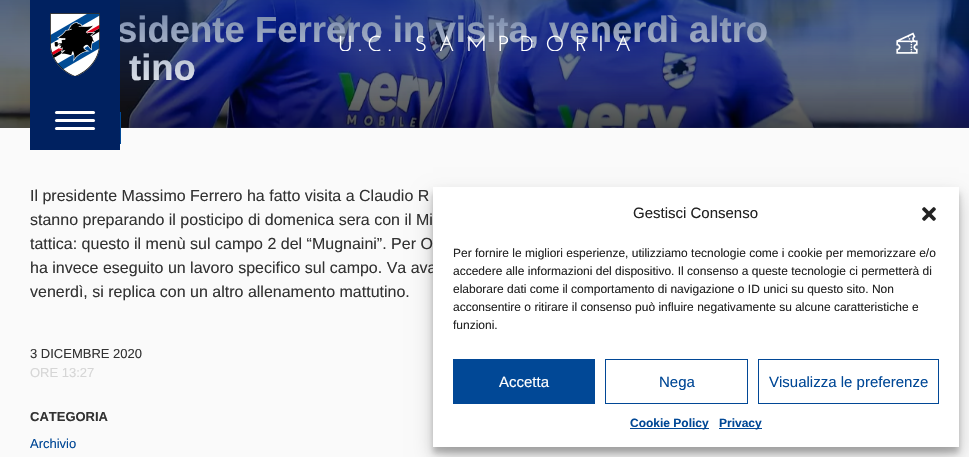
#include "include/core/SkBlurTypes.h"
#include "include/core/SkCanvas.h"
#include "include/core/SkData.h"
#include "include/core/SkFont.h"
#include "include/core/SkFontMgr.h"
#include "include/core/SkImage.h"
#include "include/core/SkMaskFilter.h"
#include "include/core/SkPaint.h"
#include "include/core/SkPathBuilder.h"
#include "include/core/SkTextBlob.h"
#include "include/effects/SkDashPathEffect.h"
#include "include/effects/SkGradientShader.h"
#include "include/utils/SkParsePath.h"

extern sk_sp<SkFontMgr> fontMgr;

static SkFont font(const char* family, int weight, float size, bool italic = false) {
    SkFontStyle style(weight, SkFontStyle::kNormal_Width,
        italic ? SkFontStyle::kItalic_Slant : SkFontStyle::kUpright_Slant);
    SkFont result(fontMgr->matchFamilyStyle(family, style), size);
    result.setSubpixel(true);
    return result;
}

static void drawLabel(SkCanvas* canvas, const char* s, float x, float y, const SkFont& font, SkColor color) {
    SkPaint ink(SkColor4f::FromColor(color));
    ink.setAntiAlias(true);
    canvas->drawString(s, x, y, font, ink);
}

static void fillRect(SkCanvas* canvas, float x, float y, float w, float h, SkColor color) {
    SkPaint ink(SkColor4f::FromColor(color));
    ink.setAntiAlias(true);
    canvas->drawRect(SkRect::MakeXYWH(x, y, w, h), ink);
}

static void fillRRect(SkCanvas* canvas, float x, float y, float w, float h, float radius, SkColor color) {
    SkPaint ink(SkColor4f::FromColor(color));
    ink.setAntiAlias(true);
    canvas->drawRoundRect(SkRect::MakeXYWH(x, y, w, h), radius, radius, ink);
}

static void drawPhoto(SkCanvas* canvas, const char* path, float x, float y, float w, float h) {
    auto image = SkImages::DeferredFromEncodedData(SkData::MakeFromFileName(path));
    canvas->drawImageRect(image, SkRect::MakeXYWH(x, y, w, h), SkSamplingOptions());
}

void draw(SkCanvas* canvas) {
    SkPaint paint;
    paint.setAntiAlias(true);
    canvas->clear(0xFFFAFAFA);
    drawPhoto(canvas, "assets/img4.png", 0, 0, 969, 128);
    {
        const SkColor colors[] = {0x00000000, 0xB3000000};
        const float stops[] = {0.5f, 1};
        const SkPoint ends[] = {{485, -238}, {485, 128}};
        paint.setShader(SkGradientShader::MakeLinear(ends, colors, stops, 2, SkTileMode::kClamp));
        paint.setAlpha(255);
    }
    canvas->drawRect(SkRect::MakeXYWH(0, 0, 969, 128), paint);
    SkFont font1 = font("Liberation Sans", 700, 36.5f);
    drawLabel(canvas, "sidente Ferrero in visita, venerdì altro", 117, 42, font1, 0xFFFFFFFF);
    drawLabel(canvas, "tino", 129, 80, font1, 0xFFFFFFFF);
    {
        const SkColor colors[] = {0x99002160, 0x00002160};
        const float stops[] = {0, 1};
        const SkPoint ends[] = {{485, 0}, {485, 106}};
        paint.setShader(SkGradientShader::MakeLinear(ends, colors, stops, 2, SkTileMode::kClamp));
        paint.setAlpha(255);
    }
    canvas->drawRect(SkRect::MakeXYWH(0, 0, 969, 101), paint);
    fillRect(canvas, 30, 0, 90, 150, 0xFF002160);
    drawPhoto(canvas, "assets/img1.png", 50, 13, 50, 63);
    fillRRect(canvas, 55, 111, 40, 3, 1.5f, 0xFFFFFFFF);
    fillRRect(canvas, 55, 119, 40, 3, 1.5f, 0xFFFFFFFF);
    fillRRect(canvas, 55, 127, 40, 3, 1.5f, 0xFFFFFFFF);
    drawPhoto(canvas, "assets/img2.png", 339, 35, 291, 16);
    drawPhoto(canvas, "assets/img3.png", 896, 32, 22, 22);
    fillRect(canvas, 120, 112, 1, 32, 0xFF014896);
    SkFont font2 = font("Liberation Sans", 400, 16);
    drawLabel(canvas, "Il presidente Massimo Ferrero ha fatto visita a Claudio R", 30, 201, font2, 0xFF333333);
    drawLabel(canvas, "stanno preparando il posticipo di domenica sera con il Mi", 30, 225, font2, 0xFF333333);
    drawLabel(canvas, "tattica: questo il menù sul campo 2 del “Mugnaini”. Per O", 30, 249, font2, 0xFF333333);
    drawLabel(canvas, "ha invece eseguito un lavoro specifico sul campo. Va ava", 30, 273, font2, 0xFF333333);
    drawLabel(canvas, "venerdì, si replica con un altro allenamento mattutino.", 30, 297, font2, 0xFF333333);
    SkFont font3 = font("Liberation Sans", 400, 13);
    drawLabel(canvas, "3 DICEMBRE 2020", 30, 358, font3, 0xFF333333);
    drawLabel(canvas, "ORE 13:27", 30, 377, font3, 0xFFD6D6D6);
    SkFont font4 = font("Liberation Sans", 700, 13);
    drawLabel(canvas, "CATEGORIA", 30, 421, font4, 0xFF333333);
    drawLabel(canvas, "Archivio", 30, 448, font3, 0xFF014896);
    paint.setShader(nullptr);
    paint.setColor(0x3B000000);
    paint.setMaskFilter(SkMaskFilter::MakeBlur(kNormal_SkBlurStyle, 3));
    canvas->drawRect(SkRect::MakeXYWH(433, 193, 526, 260), paint);
    paint.setMaskFilter(nullptr);
    paint.setColor(0x30000000);
    paint.setMaskFilter(SkMaskFilter::MakeBlur(kNormal_SkBlurStyle, 10));
    canvas->drawRect(SkRect::MakeXYWH(433, 197, 526, 260), paint);
    paint.setMaskFilter(nullptr);
    fillRect(canvas, 433, 187, 526, 260, 0xFFFFFFFF);
    SkFont font5 = font("Liberation Sans", 400, 15);
    drawLabel(canvas, "Gestisci Consenso", 633, 218, font5, 0xFF222222);
    drawPhoto(canvas, "assets/img5.png", 922, 207, 14, 14);
    SkFont font6 = font("Liberation Sans", 400, 12);
    drawLabel(canvas, "Per fornire le migliori esperienze, utilizziamo tecnologie come i cookie per memorizzare e/o", 453, 257, font6, 0xFF222222);
    drawLabel(canvas, "accedere alle informazioni del dispositivo. Il consenso a queste tecnologie ci permetterà di", 453, 275, font6, 0xFF222222);
    drawLabel(canvas, "elaborare dati come il comportamento di navigazione o ID unici su questo sito. Non", 453, 293, font6, 0xFF222222);
    drawLabel(canvas, "acconsentire o ritirare il consenso può influire negativamente su alcune caratteristiche e", 453, 311, font6, 0xFF222222);
    drawLabel(canvas, "funzioni.", 453, 329, font6, 0xFF222222);
    fillRect(canvas, 453, 359, 142, 45, 0xFF014896);
    drawLabel(canvas, "Accetta", 499, 387, font5, 0xFFFFFFFF);
    paint.setStroke(true);
    paint.setStrokeWidth(1);
    paint.setColor(0xFF014896);
    canvas->drawRect(SkRect::MakeXYWH(605.5f, 359.5f, 142, 44), paint);
    drawLabel(canvas, "Nega", 659, 387, font5, 0xFF014896);
    canvas->drawRect(SkRect::MakeXYWH(758.5f, 359.5f, 180, 44), paint);
    drawLabel(canvas, "Visualizza le preferenze", 769, 387, font5, 0xFF014896);
    fillRect(canvas, 630, 428, 79, 1, 0xFF014896);
    SkFont font7 = font("Liberation Sans", 700, 12);
    drawLabel(canvas, "Cookie Policy", 630, 427, font7, 0xFF014896);
    fillRect(canvas, 719, 428, 43, 1, 0xFF014896);
    drawLabel(canvas, "Privacy", 719, 427, font7, 0xFF014896);
}
